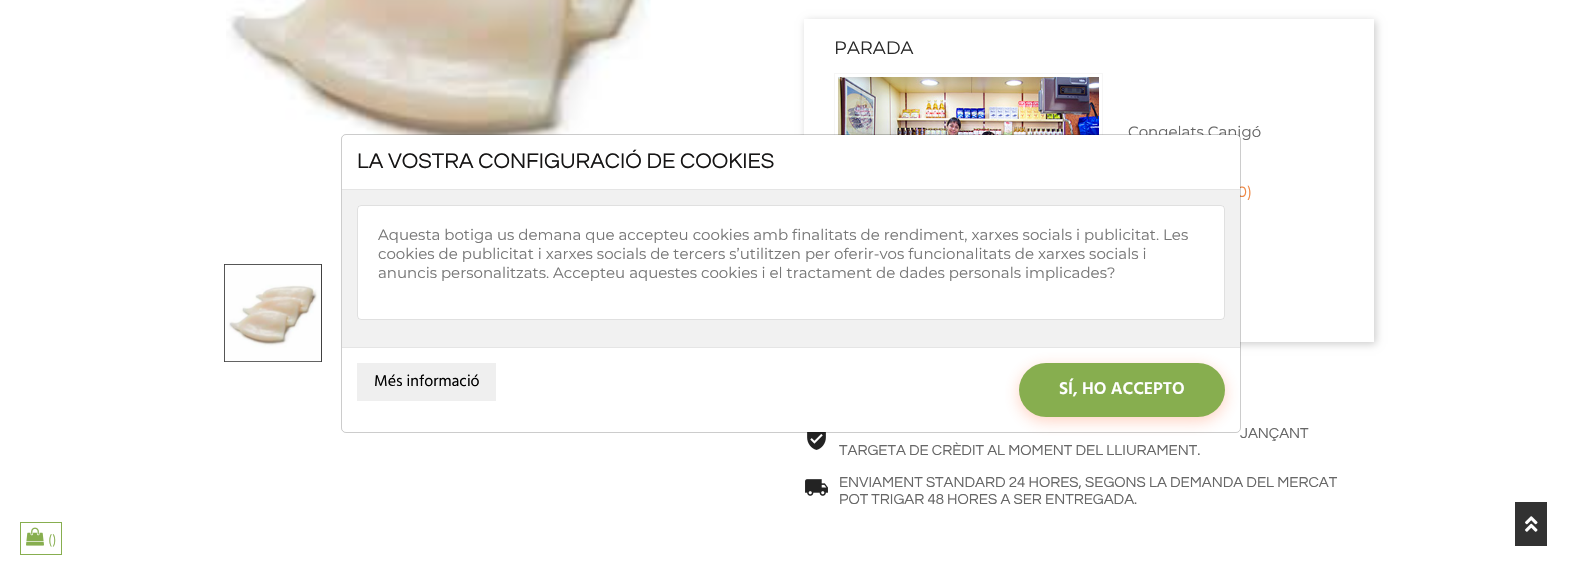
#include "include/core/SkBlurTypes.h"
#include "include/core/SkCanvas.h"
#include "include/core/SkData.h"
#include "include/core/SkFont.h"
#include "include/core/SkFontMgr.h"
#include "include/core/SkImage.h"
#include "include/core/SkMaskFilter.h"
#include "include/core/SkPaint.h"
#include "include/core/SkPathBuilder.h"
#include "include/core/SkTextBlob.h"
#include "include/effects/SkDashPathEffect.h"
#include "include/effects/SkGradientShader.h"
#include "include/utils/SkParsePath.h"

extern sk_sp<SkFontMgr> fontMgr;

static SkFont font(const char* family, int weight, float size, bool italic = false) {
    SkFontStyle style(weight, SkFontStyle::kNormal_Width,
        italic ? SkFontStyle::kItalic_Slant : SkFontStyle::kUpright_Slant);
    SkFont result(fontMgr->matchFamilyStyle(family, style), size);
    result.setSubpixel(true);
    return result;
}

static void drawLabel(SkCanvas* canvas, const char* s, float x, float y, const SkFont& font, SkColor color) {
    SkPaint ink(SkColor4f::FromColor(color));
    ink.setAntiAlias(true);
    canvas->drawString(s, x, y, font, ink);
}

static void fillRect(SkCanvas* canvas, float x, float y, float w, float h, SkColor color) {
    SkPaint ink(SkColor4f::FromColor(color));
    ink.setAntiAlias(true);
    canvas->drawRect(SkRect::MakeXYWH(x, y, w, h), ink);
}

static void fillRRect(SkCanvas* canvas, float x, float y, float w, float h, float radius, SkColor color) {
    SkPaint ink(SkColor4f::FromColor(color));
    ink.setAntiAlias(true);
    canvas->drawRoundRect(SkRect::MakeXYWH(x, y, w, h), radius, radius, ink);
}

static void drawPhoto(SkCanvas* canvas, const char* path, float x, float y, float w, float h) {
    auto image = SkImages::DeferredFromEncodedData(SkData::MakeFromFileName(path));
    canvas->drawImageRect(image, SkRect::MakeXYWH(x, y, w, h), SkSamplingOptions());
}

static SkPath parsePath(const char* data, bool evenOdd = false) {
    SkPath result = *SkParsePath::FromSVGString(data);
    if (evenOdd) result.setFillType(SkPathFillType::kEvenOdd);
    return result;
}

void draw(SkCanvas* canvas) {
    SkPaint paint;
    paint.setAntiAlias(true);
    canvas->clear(0xFFFFFFFF);
    drawPhoto(canvas, "assets/img1.png", 226, 0, 425, 159);
    paint.setStroke(true);
    paint.setStrokeWidth(1);
    paint.setColor(0xFF414141);
    canvas->drawRect(SkRect::MakeXYWH(224.5f, 264.5f, 97, 97), paint);
    drawPhoto(canvas, "assets/img2.png", 224, 264, 97, 98);
    canvas->save();
    canvas->clipPath(parsePath("M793 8H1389V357H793ZM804 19H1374V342H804Z", true), true);
    paint.setStroke(false);
    paint.setColor(0x33000000);
    paint.setMaskFilter(SkMaskFilter::MakeBlur(kNormal_SkBlurStyle, 4));
    canvas->drawRect(SkRect::MakeXYWH(806, 21, 570, 323), paint);
    paint.setMaskFilter(nullptr);
    canvas->restore();
    SkFont font1 = font("Montserrat", 100, 18);
    drawLabel(canvas, "PARADA", 834, 54, font1, 0xFF292929);
    paint.setStroke(true);
    paint.setColor(0xFFF6F6F6);
    canvas->drawRect(SkRect::MakeXYWH(834.5f, 73.5f, 268, 179), paint);
    drawPhoto(canvas, "assets/img3.png", 838, 77, 261, 58);
    SkFont font2 = font("Montserrat", 100, 15);
    drawLabel(canvas, "Congelats Canigó", 1128, 137, font2, 0xFF666666);
    drawLabel(canvas, "0)", 1237, 197, font2, 0xFFEF8743);
    drawPhoto(canvas, "assets/img4.png", 807, 432, 19, 18);
    SkFont font3 = font("Questrial", 400, 15);
    drawLabel(canvas, "JANÇANT", 1240, 438, font3, 0xFF666666);
    drawLabel(canvas, "TARGETA DE CRÈDIT AL MOMENT DEL LLIURAMENT.", 839, 455, font3, 0xFF666666);
    drawPhoto(canvas, "assets/img5.png", 805, 479, 23, 17);
    drawLabel(canvas, "ENVIAMENT STANDARD 24 HORES, SEGONS LA DEMANDA DEL MERCAT", 839, 487, font3, 0xFF666666);
    drawLabel(canvas, "POT TRIGAR 48 HORES A SER ENTREGADA.", 839, 504, font3, 0xFF666666);
    fillRect(canvas, 1515, 502, 32, 44, 0xFF323232);
    drawPhoto(canvas, "assets/img6.png", 1525, 516, 13, 16);
    fillRRect(canvas, 342, 135, 898, 297, 4, 0xFFFFFFFF);
    paint.setColor(0x33000000);
    canvas->drawRoundRect(SkRect::MakeXYWH(341.5f, 134.5f, 899, 298), 4.5f, 4.5f, paint);
    fillRect(canvas, 342, 189, 898, 1, 0xFFE5E5E5);
    SkFont font4 = font("Questrial", 400, 22);
    drawLabel(canvas, "LA VOSTRA CONFIGURACIÓ DE COOKIES", 357, 168, font4, 0xFF161515);
    fillRect(canvas, 342, 347, 898, 1, 0xFFE5E5E5);
    paint.setStroke(false);
    paint.setColor(0x4DFF6B35);
    paint.setMaskFilter(SkMaskFilter::MakeBlur(kNormal_SkBlurStyle, 7.5f));
    canvas->drawRoundRect(SkRect::MakeXYWH(1019, 367, 206, 54), 27, 27, paint);
    paint.setMaskFilter(nullptr);
    fillRect(canvas, 342, 190, 898, 157, 0xFFF1F1F1);
    fillRRect(canvas, 357, 205, 868, 115, 4, 0xFFFFFFFF);
    paint.setStroke(true);
    paint.setColor(0x1F000000);
    canvas->drawRoundRect(SkRect::MakeXYWH(357.5f, 205.5f, 867, 114), 3.5f, 3.5f, paint);
    drawLabel(canvas, "Aquesta botiga us demana que accepteu cookies amb finalitats de rendiment, xarxes socials i publicitat. Les", 378, 240, font2, 0xFF777777);
    drawLabel(canvas, "cookies de publicitat i xarxes socials de tercers s’utilitzen per oferir-vos funcionalitats de xarxes socials i", 378, 259, font2, 0xFF777777);
    drawLabel(canvas, "anuncis personalitzats. Accepteu aquestes cookies i el tractament de dades personals implicades?", 378, 278, font2, 0xFF777777);
    fillRect(canvas, 357, 363, 139, 38, 0xFFEFEFEF);
    SkFont font5 = font("Hind", 400, 16);
    drawLabel(canvas, "Més informació", 374, 386, font5, 0xFF000000);
    fillRRect(canvas, 1019, 363, 206, 54, 27, 0xFF87AE4F);
    SkFont font6 = font("Hind", 600, 17.5f);
    drawLabel(canvas, "SÍ, HO ACCEPTO", 1059, 394, font6, 0xFFFFFFFF);
    paint.setColor(0xFF87AE4F);
    canvas->drawRect(SkRect::MakeXYWH(20.5f, 522.5f, 41, 32), paint);
    drawPhoto(canvas, "assets/img7.png", 26, 527, 18, 19);
    SkFont font7 = font("Montserrat", 100, 13);
    drawLabel(canvas, "()", 48, 544, font7, 0xFF87AE4F);
}
